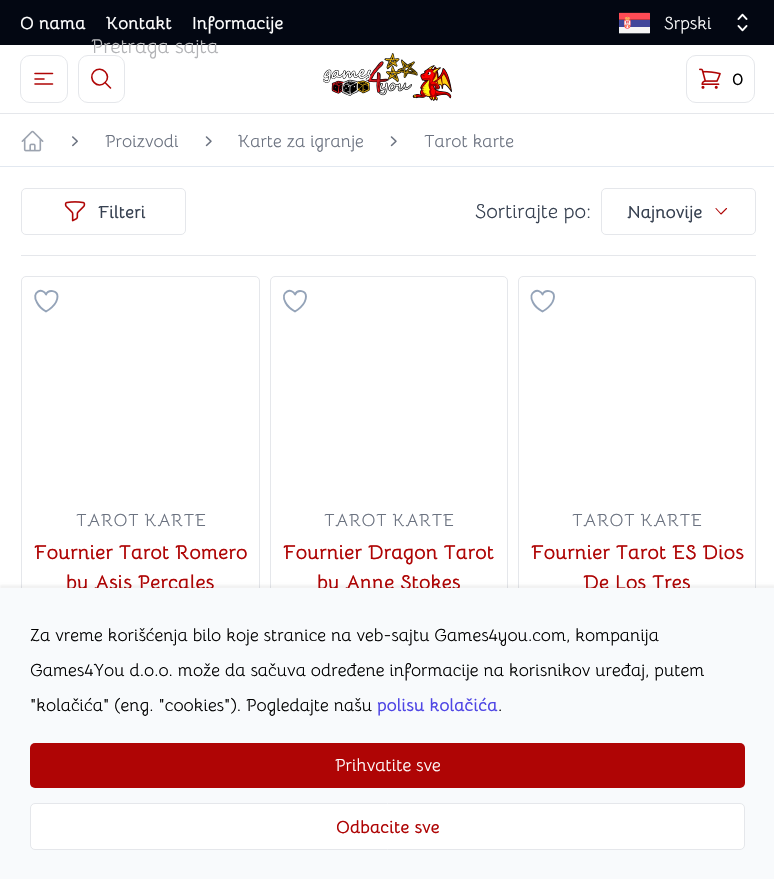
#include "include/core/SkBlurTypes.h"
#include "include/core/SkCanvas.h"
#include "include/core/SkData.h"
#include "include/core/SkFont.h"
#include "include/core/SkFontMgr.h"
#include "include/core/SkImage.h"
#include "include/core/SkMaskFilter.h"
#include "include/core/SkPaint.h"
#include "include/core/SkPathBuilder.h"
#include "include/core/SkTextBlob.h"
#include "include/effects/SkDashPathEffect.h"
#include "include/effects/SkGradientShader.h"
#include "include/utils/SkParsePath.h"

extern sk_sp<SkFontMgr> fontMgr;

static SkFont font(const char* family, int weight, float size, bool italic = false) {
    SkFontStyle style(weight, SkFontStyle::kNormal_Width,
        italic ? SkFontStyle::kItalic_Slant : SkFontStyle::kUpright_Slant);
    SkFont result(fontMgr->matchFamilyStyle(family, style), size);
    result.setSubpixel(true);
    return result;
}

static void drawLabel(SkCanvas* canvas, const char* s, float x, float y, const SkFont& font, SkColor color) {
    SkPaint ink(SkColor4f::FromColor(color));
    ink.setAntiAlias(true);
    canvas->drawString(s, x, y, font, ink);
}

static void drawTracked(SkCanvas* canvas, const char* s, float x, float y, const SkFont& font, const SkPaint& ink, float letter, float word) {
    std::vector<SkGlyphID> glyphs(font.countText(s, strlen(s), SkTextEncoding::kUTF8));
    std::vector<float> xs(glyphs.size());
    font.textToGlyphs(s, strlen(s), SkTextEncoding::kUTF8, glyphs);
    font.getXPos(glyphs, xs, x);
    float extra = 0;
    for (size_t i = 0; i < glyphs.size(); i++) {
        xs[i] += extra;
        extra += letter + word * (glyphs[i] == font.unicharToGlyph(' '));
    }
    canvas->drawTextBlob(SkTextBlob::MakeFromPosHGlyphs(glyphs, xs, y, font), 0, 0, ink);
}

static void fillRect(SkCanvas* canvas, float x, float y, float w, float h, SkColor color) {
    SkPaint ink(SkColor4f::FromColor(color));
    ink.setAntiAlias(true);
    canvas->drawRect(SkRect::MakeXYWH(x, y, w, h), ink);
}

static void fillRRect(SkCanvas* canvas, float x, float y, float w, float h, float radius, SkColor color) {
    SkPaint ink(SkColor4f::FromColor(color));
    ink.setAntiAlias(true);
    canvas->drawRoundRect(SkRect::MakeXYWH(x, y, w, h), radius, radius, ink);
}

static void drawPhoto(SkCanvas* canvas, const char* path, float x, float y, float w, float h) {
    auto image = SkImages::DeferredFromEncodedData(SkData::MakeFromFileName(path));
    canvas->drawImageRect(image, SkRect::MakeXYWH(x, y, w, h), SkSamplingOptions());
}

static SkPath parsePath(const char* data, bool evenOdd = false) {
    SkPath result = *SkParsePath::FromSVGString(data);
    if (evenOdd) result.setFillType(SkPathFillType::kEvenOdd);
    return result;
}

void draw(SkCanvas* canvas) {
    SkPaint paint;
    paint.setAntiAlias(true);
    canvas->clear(0xFFFFFFFF);
    fillRect(canvas, 0, 0, 774, 45, 0xFF030712);
    SkFont font1 = font("Bellota", 700, 17.5f);
    drawLabel(canvas, "O nama", 20, 29, font1, 0xFFFFFFFF);
    drawLabel(canvas, "Kontakt", 106, 29, font1, 0xFFFFFFFF);
    drawLabel(canvas, "Informacije", 192, 29, font1, 0xFFFFFFFF);
    drawPhoto(canvas, "assets/img1.png", 619, 12, 31, 22);
    SkFont font2 = font("Bellota", 400, 17.5f);
    drawLabel(canvas, "Srpski", 664, 29, font2, 0xFFFFFFFF);
    drawPhoto(canvas, "assets/img2.png", 737, 13, 11, 19);
    paint.setStroke(true);
    paint.setStrokeWidth(1);
    paint.setColor(0xFFE5E7EB);
    canvas->drawRoundRect(SkRect::MakeXYWH(78.5f, 55.5f, 46, 47), 9.5f, 9.5f, paint);
    SkFont font3 = font("Bellota", 400, 20);
    drawLabel(canvas, "Pretraga sajta", 91, 53, font3, 0xFFB2B3B6);
    paint.setStrokeWidth(1.6f);
    paint.setStrokeCap(SkPaint::kRound_Cap);
    paint.setStrokeJoin(SkPaint::kRound_Join);
    paint.setColor(0xFFAF0505);
    canvas->drawPath(parsePath("M110.5 88L105 82.5M105 82.5C112.5 75.5 101.5 64.5 94 71.5C87 79 98 90 105 82.5Z"), paint);
    paint.setStrokeWidth(1);
    paint.setStrokeCap(SkPaint::kButt_Cap);
    paint.setStrokeJoin(SkPaint::kMiter_Join);
    paint.setColor(0xFFE5E7EB);
    canvas->drawRoundRect(SkRect::MakeXYWH(20.5f, 55.5f, 47, 47), 9.5f, 9.5f, paint);
    paint.setStrokeWidth(1.6f);
    paint.setStrokeCap(SkPaint::kRound_Cap);
    paint.setStrokeJoin(SkPaint::kRound_Join);
    paint.setColor(0xFFAF0505);
    canvas->drawPath(parsePath("M35 73.5H52.5M35 79H44M35 84H52.5"), paint);
    drawPhoto(canvas, "assets/img3.png", 323, 53, 129, 48);
    paint.setStrokeWidth(1);
    paint.setStrokeCap(SkPaint::kButt_Cap);
    paint.setStrokeJoin(SkPaint::kMiter_Join);
    paint.setColor(0xFFE5E7EB);
    canvas->drawRoundRect(SkRect::MakeXYWH(686.5f, 55.5f, 68, 47), 9.5f, 9.5f, paint);
    drawPhoto(canvas, "assets/img4.png", 699, 68, 22, 21);
    drawLabel(canvas, "0", 732, 85, font1, 0xFF000000);
    fillRect(canvas, 0, 113, 774, 1, 0xFFE5E7EB);
    drawPhoto(canvas, "assets/img5.png", 21, 130, 23, 22);
    drawPhoto(canvas, "assets/img6.png", 72, 136, 6, 11);
    drawLabel(canvas, "Proizvodi", 105, 147, font2, 0xFF6B7280);
    drawPhoto(canvas, "assets/img7.png", 205, 136, 7, 11);
    drawLabel(canvas, "Karte za igranje", 238, 147, font2, 0xFF6B7280);
    drawPhoto(canvas, "assets/img7.png", 390, 136, 7, 11);
    drawLabel(canvas, "Tarot karte", 424, 147, font2, 0xFF6B7280);
    fillRect(canvas, 0, 166, 774, 1, 0xFFE2E8F0);
    fillRect(canvas, 21, 255, 735, 1, 0xFFE5E7EB);
    canvas->drawRoundRect(SkRect::MakeXYWH(21.5f, 188.5f, 164, 46), 4.5f, 4.5f, paint);
    drawPhoto(canvas, "assets/img8.png", 64, 201, 22, 21);
    drawLabel(canvas, "Filteri", 98, 218, font1, 0xFF374151);
    drawLabel(canvas, "Sortirajte po:", 475, 218, font3, 0xFF374151);
    canvas->drawRoundRect(SkRect::MakeXYWH(601.5f, 188.5f, 154, 46), 4.5f, 4.5f, paint);
    drawLabel(canvas, "Najnovije", 627, 218, font1, 0xFF374151);
    paint.setStrokeWidth(1.1f);
    paint.setStrokeCap(SkPaint::kRound_Cap);
    paint.setStrokeJoin(SkPaint::kRound_Join);
    paint.setColor(0xFFAF0505);
    canvas->drawPath(parsePath("M726.5 208.5L721 214L716 208.5"), paint);
    paint.setStrokeWidth(1);
    paint.setStrokeCap(SkPaint::kButt_Cap);
    paint.setStrokeJoin(SkPaint::kMiter_Join);
    paint.setColor(0xFFE5E7EB);
    canvas->drawRoundRect(SkRect::MakeXYWH(21.5f, 276.5f, 238, 432), 4.5f, 4.5f, paint);
    paint.setStrokeWidth(1.9f);
    paint.setStrokeCap(SkPaint::kRound_Cap);
    paint.setStrokeJoin(SkPaint::kRound_Join);
    paint.setColor(0xFF94A3B8);
    canvas->drawPath(parsePath("M57.5 296.5C57.5 290.5 48.5 289 46 294.5C43 287 30.5 291.5 37 302.5C39 306.5 42.5 309.5 46 311.5C46 311.5 57.5 305.5 57.5 296.5Z"), paint);
    paint.setStroke(false);
    paint.setColor(0xFF6B7280);
    drawTracked(canvas, "TAROT KARTE", 76, 526, font2, paint, 0.5f, 0);
    SkFont font4 = font("Bellota", 700, 20);
    drawLabel(canvas, "Fournier Tarot Romero", 34, 559, font4, 0xFFAF0505);
    drawLabel(canvas, "by Asis Percales", 66, 589, font4, 0xFFAF0505);
    paint.setStroke(true);
    paint.setStrokeWidth(1);
    paint.setStrokeCap(SkPaint::kButt_Cap);
    paint.setStrokeJoin(SkPaint::kMiter_Join);
    paint.setColor(0xFFE5E7EB);
    canvas->drawRoundRect(SkRect::MakeXYWH(270.5f, 276.5f, 237, 432), 4.5f, 4.5f, paint);
    paint.setStrokeWidth(1.9f);
    paint.setStrokeCap(SkPaint::kRound_Cap);
    paint.setStrokeJoin(SkPaint::kRound_Join);
    paint.setColor(0xFF94A3B8);
    canvas->drawPath(parsePath("M306 296.5C306 290.5 297.5 289 295 294.5C292 287 279.5 291.5 285.5 302.5C287.5 306.5 291.5 309.5 295 311.5C295 311.5 306 305.5 306 296.5Z"), paint);
    paint.setStroke(false);
    paint.setColor(0xFF6B7280);
    drawTracked(canvas, "TAROT KARTE", 324, 526, font2, paint, 0.5f, 0);
    drawLabel(canvas, "Fournier Dragon Tarot", 283, 559, font4, 0xFFAF0505);
    drawLabel(canvas, "by Anne Stokes", 317, 589, font4, 0xFFAF0505);
    paint.setStroke(true);
    paint.setStrokeWidth(1);
    paint.setStrokeCap(SkPaint::kButt_Cap);
    paint.setStrokeJoin(SkPaint::kMiter_Join);
    paint.setColor(0xFFE5E7EB);
    canvas->drawRoundRect(SkRect::MakeXYWH(518.5f, 276.5f, 237, 432), 4.5f, 4.5f, paint);
    paint.setStrokeWidth(1.9f);
    paint.setStrokeCap(SkPaint::kRound_Cap);
    paint.setStrokeJoin(SkPaint::kRound_Join);
    paint.setColor(0xFF94A3B8);
    canvas->drawPath(parsePath("M554 296.5C554 290.5 545 289 542.5 294.5C539.5 287 527 291.5 533 302.5C535 306.5 539 309.5 542.5 311.5C542.5 311.5 554 305.5 554 296.5Z"), paint);
    paint.setStroke(false);
    paint.setColor(0xFF6B7280);
    drawTracked(canvas, "TAROT KARTE", 572, 526, font2, paint, 0.5f, 0);
    drawLabel(canvas, "Fournier Tarot ES Dios", 531, 559, font4, 0xFFAF0505);
    drawLabel(canvas, "De Los Tres", 583, 589, font4, 0xFFAF0505);
    paint.setColor(0x0D000000);
    paint.setMaskFilter(SkMaskFilter::MakeBlur(kNormal_SkBlurStyle, 1));
    canvas->drawRect(SkRect::MakeXYWH(0, 585, 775, 293), paint);
    paint.setMaskFilter(nullptr);
    fillRect(canvas, 0, 588, 774, 291, 0xFFF8FAFC);
    drawLabel(canvas, "Za vreme korišćenja bilo koje stranice na veb-sajtu Games4you.com, kompanija", 30, 641, font2, 0xFF000000);
    drawLabel(canvas, "Games4You d.o.o. može da sačuva određene informacije na korisnikov uređaj, putem", 30, 676, font2, 0xFF000000);
    drawLabel(canvas, "\"kolačića\" (eng. \"cookies\"). Pogledajte našu", 30, 711, font2, 0xFF000000);
    drawLabel(canvas, "polisu kolačića", 377, 711, font1, 0xFF4F46E5);
    drawLabel(canvas, ".", 498, 711, font2, 0xFF000000);
    fillRRect(canvas, 30, 743, 715, 45, 5, 0xFFAF0505);
    drawLabel(canvas, "Prihvatite sve", 335, 771, font2, 0xFFFFFFFF);
    paint.setColor(0xFFFFFFFF);
    canvas->drawRoundRect(SkRect::MakeXYWH(30.5f, 803.5f, 714, 46), 4.5f, 4.5f, paint);
    paint.setStroke(true);
    paint.setStrokeWidth(1);
    paint.setStrokeCap(SkPaint::kButt_Cap);
    paint.setStrokeJoin(SkPaint::kMiter_Join);
    paint.setColor(0xFFE5E7EB);
    canvas->drawRoundRect(SkRect::MakeXYWH(30.5f, 803.5f, 714, 46), 4.5f, 4.5f, paint);
    drawLabel(canvas, "Odbacite sve", 336, 833, font1, 0xFFAF0505);
}
